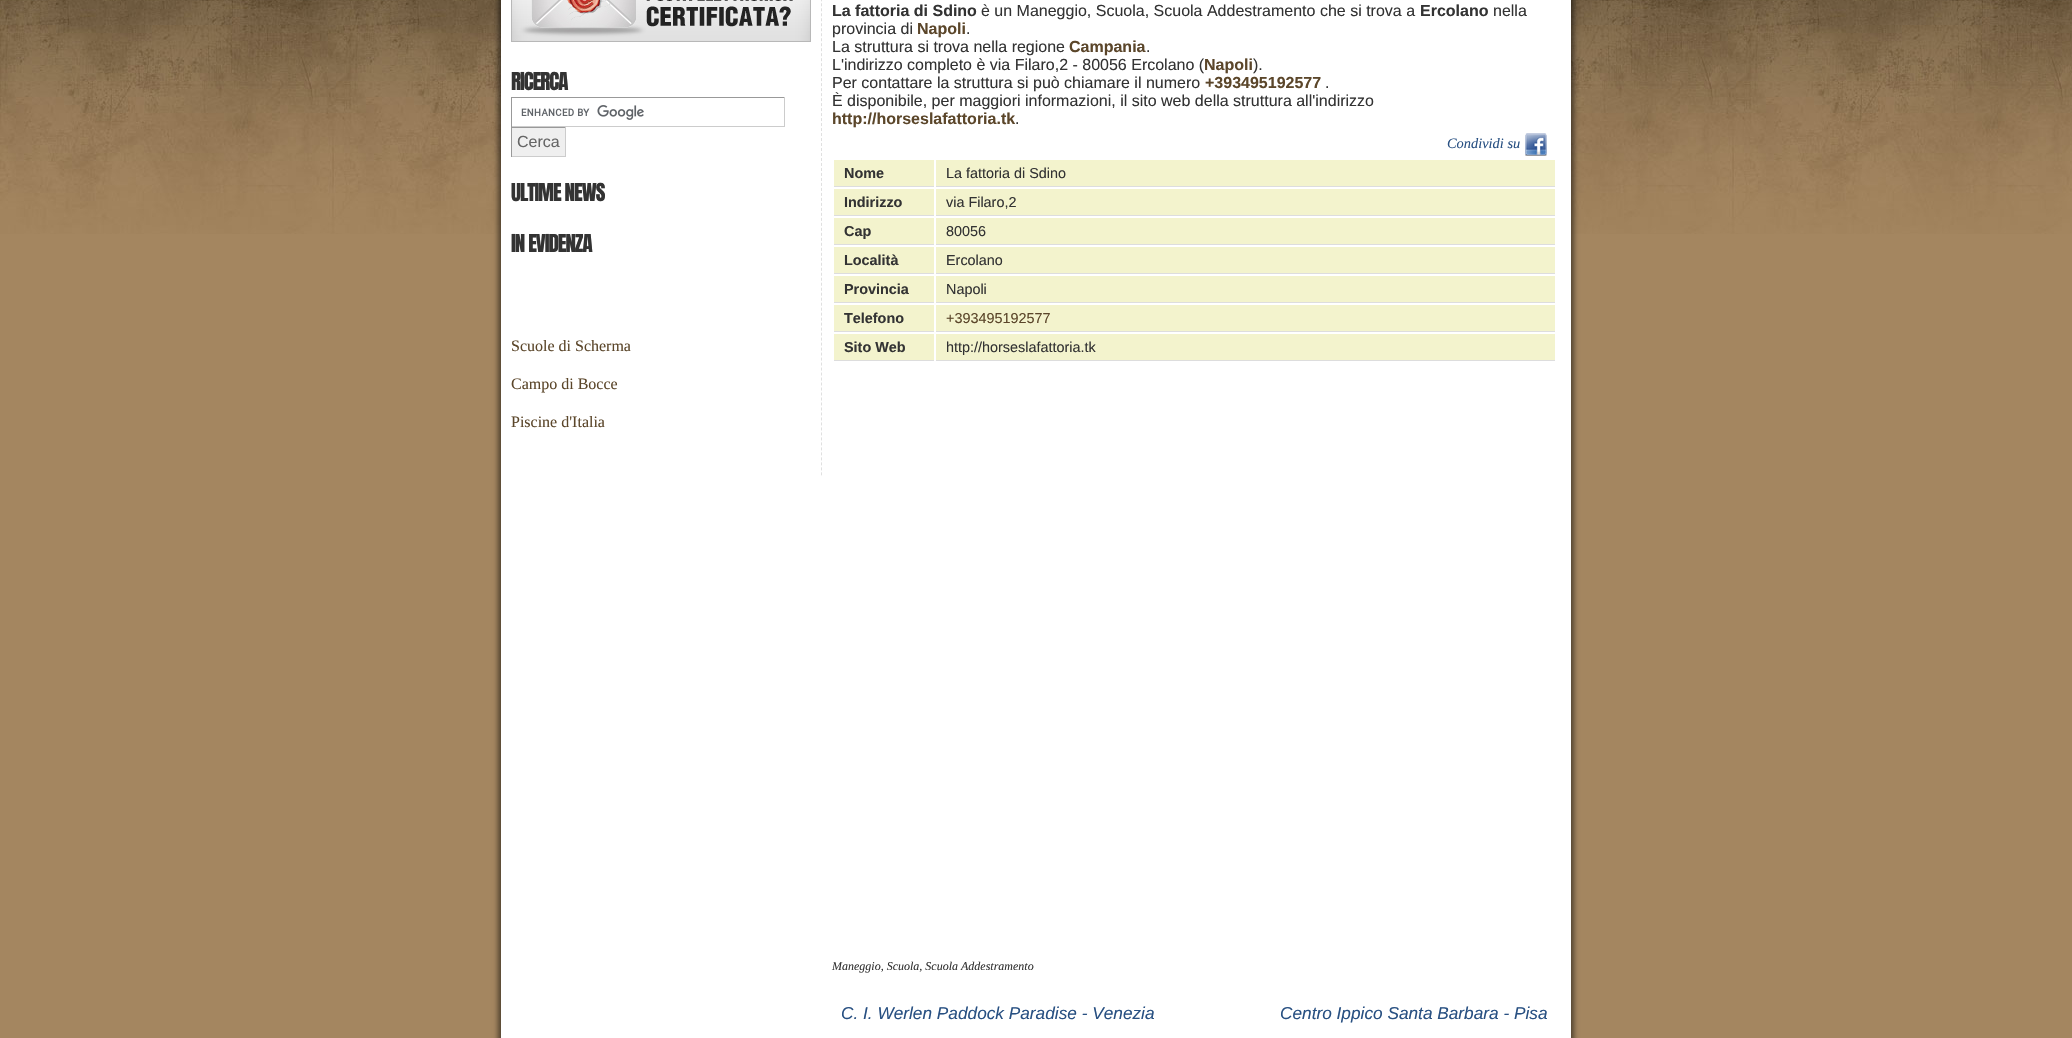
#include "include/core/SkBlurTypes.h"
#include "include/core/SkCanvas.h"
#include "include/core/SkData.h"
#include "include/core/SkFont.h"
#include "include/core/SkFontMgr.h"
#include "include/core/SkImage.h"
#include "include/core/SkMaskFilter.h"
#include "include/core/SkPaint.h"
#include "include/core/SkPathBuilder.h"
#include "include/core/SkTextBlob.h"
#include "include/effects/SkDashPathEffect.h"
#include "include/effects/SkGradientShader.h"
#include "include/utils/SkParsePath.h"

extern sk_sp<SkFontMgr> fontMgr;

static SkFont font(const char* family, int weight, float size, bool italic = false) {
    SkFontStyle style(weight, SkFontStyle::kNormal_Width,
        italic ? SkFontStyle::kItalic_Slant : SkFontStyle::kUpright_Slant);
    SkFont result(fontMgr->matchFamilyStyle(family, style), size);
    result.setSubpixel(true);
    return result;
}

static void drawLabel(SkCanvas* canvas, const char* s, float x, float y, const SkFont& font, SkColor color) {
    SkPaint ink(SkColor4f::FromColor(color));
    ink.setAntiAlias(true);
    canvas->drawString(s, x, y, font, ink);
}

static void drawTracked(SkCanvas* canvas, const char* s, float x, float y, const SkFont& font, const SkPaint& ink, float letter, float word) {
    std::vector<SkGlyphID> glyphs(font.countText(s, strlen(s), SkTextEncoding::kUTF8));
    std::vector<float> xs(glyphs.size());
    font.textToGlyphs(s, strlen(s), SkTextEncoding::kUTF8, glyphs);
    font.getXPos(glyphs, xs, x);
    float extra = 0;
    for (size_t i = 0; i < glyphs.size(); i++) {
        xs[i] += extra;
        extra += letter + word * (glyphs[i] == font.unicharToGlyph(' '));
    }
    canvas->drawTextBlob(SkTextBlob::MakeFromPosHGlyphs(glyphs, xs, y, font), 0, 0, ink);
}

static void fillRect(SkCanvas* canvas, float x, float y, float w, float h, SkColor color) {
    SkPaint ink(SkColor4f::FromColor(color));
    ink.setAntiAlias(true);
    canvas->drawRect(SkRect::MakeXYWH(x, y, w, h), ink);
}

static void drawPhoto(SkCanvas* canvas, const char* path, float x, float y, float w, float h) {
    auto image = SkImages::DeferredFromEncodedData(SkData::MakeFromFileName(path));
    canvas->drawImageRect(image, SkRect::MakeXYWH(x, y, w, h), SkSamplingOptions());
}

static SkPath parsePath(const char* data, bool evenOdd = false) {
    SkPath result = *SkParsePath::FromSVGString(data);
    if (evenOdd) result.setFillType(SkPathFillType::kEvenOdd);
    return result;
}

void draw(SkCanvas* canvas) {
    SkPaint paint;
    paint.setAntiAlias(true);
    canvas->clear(0xFFA48660);
    drawPhoto(canvas, "assets/img1.png", 0, 0, 2072, 234);
    paint.setColor(0x80000000);
    paint.setMaskFilter(SkMaskFilter::MakeBlur(kNormal_SkBlurStyle, 2.5f));
    canvas->drawRect(SkRect::MakeXYWH(498, -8, 1076, 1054), paint);
    paint.setMaskFilter(nullptr);
    fillRect(canvas, 501, 0, 1070, 1038, 0xFFFFFFFF);
    paint.setStroke(true);
    paint.setStrokeWidth(1);
    paint.setColor(0xFFE0E0E0);
    paint.setPathEffect(SkDashPathEffect::Make({{3, 1.99f}}, 0));
    canvas->drawPath(parsePath("M821.5-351V476"), paint);
    paint.setPathEffect(nullptr);
    drawPhoto(canvas, "assets/img2.png", 511, 0, 300, 42);
    SkFont font1 = font("Anton", 400, 21);
    paint.setStroke(false);
    paint.setColor(0xFF333333);
    drawTracked(canvas, "RICERCA", 511, 90, font1, paint, -1, 0);
    drawPhoto(canvas, "assets/img3.png", 521, 105, 123, 15);
    fillRect(canvas, 511, 97, 274, 1, 0xFF999999);
    fillRect(canvas, 784, 97, 1, 30, 0xFFCCCCCC);
    fillRect(canvas, 511, 126, 274, 1, 0xFFCCCCCC);
    fillRect(canvas, 511, 97, 1, 30, 0xFF999999);
    fillRect(canvas, 512, 128, 53, 28, 0xFFEFEFEF);
    fillRect(canvas, 511, 127, 55, 1, 0xFF999999);
    fillRect(canvas, 565, 127, 1, 30, 0xFFCCCCCC);
    fillRect(canvas, 511, 156, 55, 1, 0xFFCCCCCC);
    fillRect(canvas, 511, 127, 1, 30, 0xFF999999);
    SkFont font2 = font("Liberation Sans", 400, 16);
    drawLabel(canvas, "Cerca", 517, 147, font2, 0xFF666666);
    drawTracked(canvas, "ULTIME NEWS", 511, 201, font1, paint, -1, 0);
    drawTracked(canvas, "IN EVIDENZA", 511, 252, font1, paint, -1, 0);
    SkFont font3 = font("Liberation Serif", 400, 16);
    drawLabel(canvas, "Scuole di Scherma", 511, 351, font3, 0xFF5B462A);
    drawLabel(canvas, "Campo di Bocce", 511, 389, font3, 0xFF5B462A);
    drawLabel(canvas, "Piscine d'Italia", 511, 427, font3, 0xFF5B462A);
    SkFont font4 = font("Liberation Sans", 700, 16);
    drawLabel(canvas, "La fattoria di Sdino", 832, 16, font4, 0xFF333333);
    drawLabel(canvas, "è un Maneggio, Scuola, Scuola Addestramento che si trova a", 981, 16, font2, 0xFF333333);
    drawLabel(canvas, "Ercolano", 1420, 16, font4, 0xFF333333);
    drawLabel(canvas, "nella", 1493, 16, font2, 0xFF333333);
    drawLabel(canvas, "provincia di", 832, 34, font2, 0xFF333333);
    drawLabel(canvas, "Napoli", 917, 34, font4, 0xFF5B462A);
    drawLabel(canvas, ".", 966, 34, font2, 0xFF333333);
    drawLabel(canvas, "La struttura si trova nella regione", 832, 52, font2, 0xFF333333);
    drawLabel(canvas, "Campania", 1069, 52, font4, 0xFF5B462A);
    drawLabel(canvas, ".", 1146, 52, font2, 0xFF333333);
    drawLabel(canvas, "L'indirizzo completo è via Filaro,2 - 80056 Ercolano (", 832, 70, font2, 0xFF333333);
    drawLabel(canvas, "Napoli", 1204, 70, font4, 0xFF5B462A);
    drawLabel(canvas, ").", 1253, 70, font2, 0xFF333333);
    drawLabel(canvas, "Per contattare la struttura si può chiamare il numero", 832, 88, font2, 0xFF333333);
    drawLabel(canvas, "+393495192577", 1205, 88, font4, 0xFF5B462A);
    drawLabel(canvas, ".", 1325, 88, font2, 0xFF333333);
    drawLabel(canvas, "È disponibile, per maggiori informazioni, il sito web della struttura all'indirizzo", 832, 106, font2, 0xFF333333);
    drawLabel(canvas, "http://horseslafattoria.tk", 832, 124, font4, 0xFF5B462A);
    drawLabel(canvas, ".", 1015, 124, font2, 0xFF333333);
    SkFont font5 = font("Liberation Serif", 400, 14.4f, true);
    drawLabel(canvas, "Condividi su", 1447, 148, font5, 0xFF285082);
    drawPhoto(canvas, "assets/img4.png", 1525, 133, 22, 23);
    fillRect(canvas, 834, 160, 100, 26, 0xFFF3F3CD);
    fillRect(canvas, 834, 186, 100, 1, 0xFFDDDDDD);
    SkFont font6 = font("Liberation Sans", 700, 14.4f);
    drawLabel(canvas, "Nome", 844, 178, font6, 0xFF333333);
    fillRect(canvas, 936, 160, 619, 26, 0xFFF3F3CD);
    fillRect(canvas, 936, 186, 619, 1, 0xFFDDDDDD);
    SkFont font7 = font("Liberation Sans", 400, 14.4f);
    drawLabel(canvas, "La fattoria di Sdino", 946, 178, font7, 0xFF333333);
    fillRect(canvas, 834, 189, 100, 26, 0xFFF3F3CD);
    fillRect(canvas, 834, 215, 100, 1, 0xFFDDDDDD);
    drawLabel(canvas, "Indirizzo", 844, 207, font6, 0xFF333333);
    fillRect(canvas, 936, 189, 619, 26, 0xFFF3F3CD);
    fillRect(canvas, 936, 215, 619, 1, 0xFFDDDDDD);
    drawLabel(canvas, "via Filaro,2", 946, 207, font7, 0xFF333333);
    fillRect(canvas, 834, 218, 100, 26, 0xFFF3F3CD);
    fillRect(canvas, 834, 244, 100, 1, 0xFFDDDDDD);
    drawLabel(canvas, "Cap", 844, 236, font6, 0xFF333333);
    fillRect(canvas, 936, 218, 619, 26, 0xFFF3F3CD);
    fillRect(canvas, 936, 244, 619, 1, 0xFFDDDDDD);
    drawLabel(canvas, "80056", 946, 236, font7, 0xFF333333);
    fillRect(canvas, 834, 247, 100, 26, 0xFFF3F3CD);
    fillRect(canvas, 834, 273, 100, 1, 0xFFDDDDDD);
    drawLabel(canvas, "Località", 844, 265, font6, 0xFF333333);
    fillRect(canvas, 936, 247, 619, 26, 0xFFF3F3CD);
    fillRect(canvas, 936, 273, 619, 1, 0xFFDDDDDD);
    drawLabel(canvas, "Ercolano", 946, 265, font7, 0xFF333333);
    fillRect(canvas, 834, 276, 100, 26, 0xFFF3F3CD);
    fillRect(canvas, 834, 302, 100, 1, 0xFFDDDDDD);
    drawLabel(canvas, "Provincia", 844, 294, font6, 0xFF333333);
    fillRect(canvas, 936, 276, 619, 26, 0xFFF3F3CD);
    fillRect(canvas, 936, 302, 619, 1, 0xFFDDDDDD);
    drawLabel(canvas, "Napoli", 946, 294, font7, 0xFF333333);
    fillRect(canvas, 834, 305, 100, 26, 0xFFF3F3CD);
    fillRect(canvas, 834, 331, 100, 1, 0xFFDDDDDD);
    drawLabel(canvas, "Telefono", 844, 323, font6, 0xFF333333);
    fillRect(canvas, 936, 305, 619, 26, 0xFFF3F3CD);
    fillRect(canvas, 936, 331, 619, 1, 0xFFDDDDDD);
    drawLabel(canvas, "+393495192577", 946, 323, font7, 0xFF5B462A);
    fillRect(canvas, 834, 334, 100, 26, 0xFFF3F3CD);
    fillRect(canvas, 834, 360, 100, 1, 0xFFDDDDDD);
    drawLabel(canvas, "Sito Web", 844, 352, font6, 0xFF333333);
    fillRect(canvas, 936, 334, 619, 26, 0xFFF3F3CD);
    fillRect(canvas, 936, 360, 619, 1, 0xFFDDDDDD);
    drawLabel(canvas, "http://horseslafattoria.tk", 946, 352, font7, 0xFF333333);
    SkFont font8 = font("Liberation Serif", 400, 12, true);
    drawLabel(canvas, "Maneggio, Scuola, Scuola Addestramento", 832, 970, font8, 0xFF333333);
    SkFont font9 = font("Liberation Sans", 400, 17.25f, true);
    drawLabel(canvas, "C. I. Werlen Paddock Paradise - Venezia", 841, 1019, font9, 0xFF285082);
    drawLabel(canvas, "Centro Ippico Santa Barbara - Pisa", 1280, 1019, font9, 0xFF285082);
}
